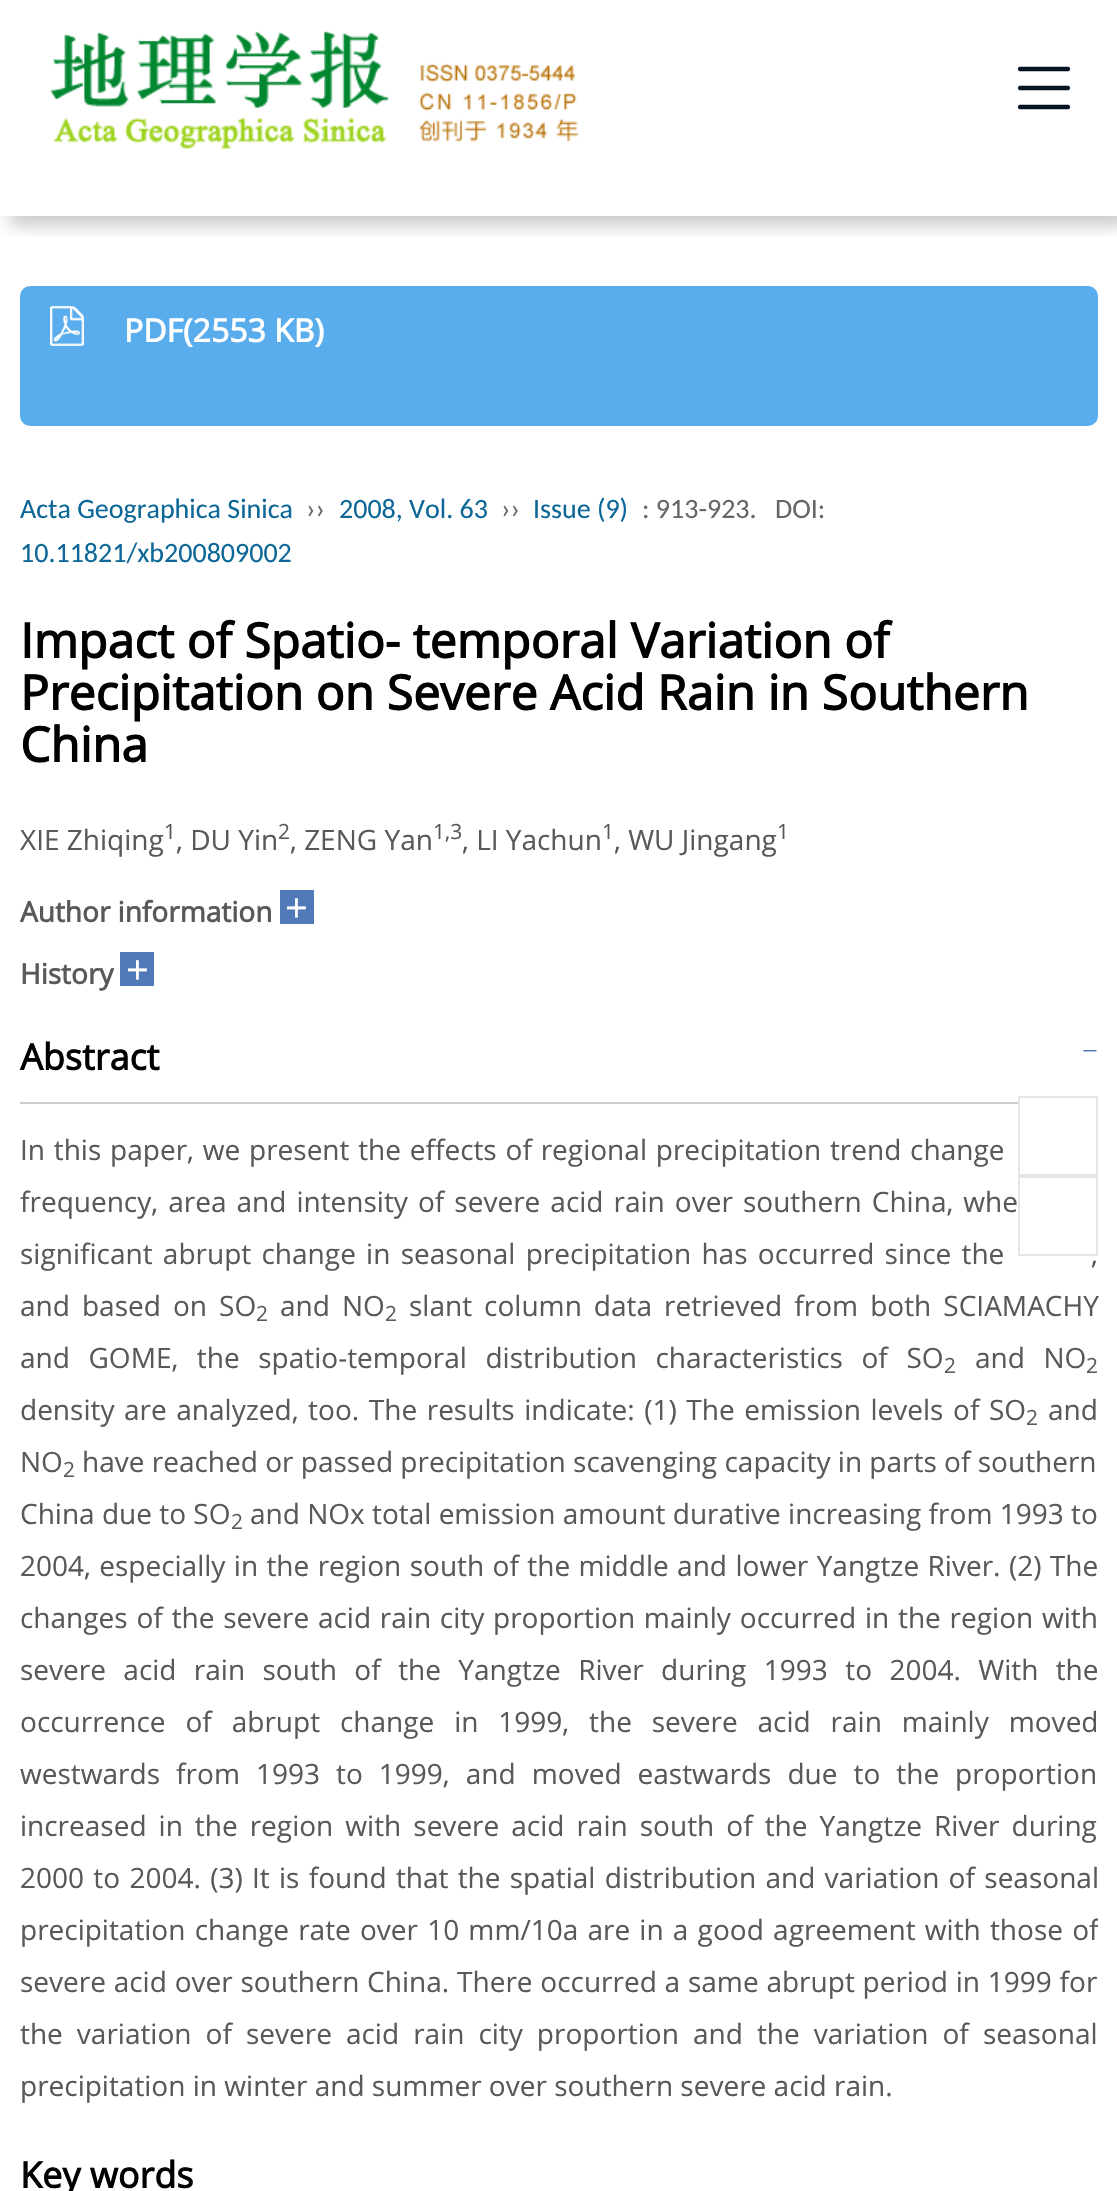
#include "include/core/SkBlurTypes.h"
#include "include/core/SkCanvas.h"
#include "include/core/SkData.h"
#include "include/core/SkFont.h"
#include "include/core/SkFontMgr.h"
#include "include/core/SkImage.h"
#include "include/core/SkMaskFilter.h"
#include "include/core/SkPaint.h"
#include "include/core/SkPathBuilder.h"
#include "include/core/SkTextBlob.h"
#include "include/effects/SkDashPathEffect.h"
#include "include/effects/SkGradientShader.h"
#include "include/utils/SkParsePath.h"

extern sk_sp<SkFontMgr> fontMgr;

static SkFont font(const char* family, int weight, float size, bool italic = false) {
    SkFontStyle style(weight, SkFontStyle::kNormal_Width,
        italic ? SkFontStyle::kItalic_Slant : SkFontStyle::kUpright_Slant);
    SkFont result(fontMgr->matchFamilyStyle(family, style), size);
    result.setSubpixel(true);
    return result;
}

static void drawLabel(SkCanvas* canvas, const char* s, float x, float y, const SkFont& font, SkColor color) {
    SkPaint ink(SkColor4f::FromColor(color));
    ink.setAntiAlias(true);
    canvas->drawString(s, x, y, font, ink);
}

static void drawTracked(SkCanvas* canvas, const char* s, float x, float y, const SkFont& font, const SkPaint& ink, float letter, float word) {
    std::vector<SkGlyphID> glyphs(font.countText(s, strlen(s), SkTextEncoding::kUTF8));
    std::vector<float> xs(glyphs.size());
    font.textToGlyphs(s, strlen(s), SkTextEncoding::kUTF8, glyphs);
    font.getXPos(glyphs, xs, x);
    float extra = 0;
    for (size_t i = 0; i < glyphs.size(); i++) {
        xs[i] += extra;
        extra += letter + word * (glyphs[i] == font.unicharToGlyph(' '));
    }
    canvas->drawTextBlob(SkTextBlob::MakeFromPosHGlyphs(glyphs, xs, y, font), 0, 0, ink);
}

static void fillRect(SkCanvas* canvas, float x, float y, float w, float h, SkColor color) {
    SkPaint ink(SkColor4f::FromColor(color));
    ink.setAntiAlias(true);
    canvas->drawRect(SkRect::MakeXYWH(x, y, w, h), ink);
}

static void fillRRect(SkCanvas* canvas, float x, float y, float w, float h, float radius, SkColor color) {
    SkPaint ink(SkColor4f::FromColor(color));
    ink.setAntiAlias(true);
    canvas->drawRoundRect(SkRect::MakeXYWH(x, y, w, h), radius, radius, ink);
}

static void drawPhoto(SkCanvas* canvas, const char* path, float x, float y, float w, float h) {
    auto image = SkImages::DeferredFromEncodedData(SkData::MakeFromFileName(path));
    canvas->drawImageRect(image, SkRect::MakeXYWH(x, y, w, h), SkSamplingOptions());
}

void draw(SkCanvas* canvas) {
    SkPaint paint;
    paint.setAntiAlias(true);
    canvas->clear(0xFFFFFFFF);
    canvas->save();
    canvas->clipRect(SkRect::MakeXYWH(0, 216, 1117, 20));
    paint.setColor(0x33000000);
    paint.setMaskFilter(SkMaskFilter::MakeBlur(kNormal_SkBlurStyle, 8));
    canvas->drawRect(SkRect::MakeXYWH(10, 10, 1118, 216), paint);
    paint.setMaskFilter(nullptr);
    canvas->restore();
    drawPhoto(canvas, "assets/img1.png", 50, 31, 529, 118);
    drawPhoto(canvas, "assets/img2.png", 1017, 66, 54, 44);
    fillRRect(canvas, 20, 286, 1078, 140, 10, 0xFF5AADEC);
    drawPhoto(canvas, "assets/img3.png", 50, 306, 34, 40);
    SkFont font1 = font("Open Sans", 700, 32);
    drawLabel(canvas, "PDF(2553 KB)", 124, 342, font1, 0xFFFFFFFF);
    SkFont font2 = font("Carlito", 400, 28);
    drawLabel(canvas, "Acta Geographica Sinica", 20, 518, font2, 0xFF0D6797);
    drawLabel(canvas, "››", 306, 518, font2, 0xFF666666);
    drawLabel(canvas, "2008, Vol. 63", 339, 518, font2, 0xFF0D6797);
    drawLabel(canvas, "››", 501, 518, font2, 0xFF666666);
    drawLabel(canvas, "Issue (9)", 533, 518, font2, 0xFF0D6797);
    drawLabel(canvas, ": 913-923.", 642, 518, font2, 0xFF666666);
    drawLabel(canvas, "DOI:", 775, 518, font2, 0xFF666666);
    drawLabel(canvas, "10.11821/xb200809002", 20, 562, font2, 0xFF0D6797);
    SkFont font3 = font("Open Sans", 700, 48);
    drawLabel(canvas, "Impact of Spatio- temporal Variation of", 20, 658, font3, 0xFF000000);
    drawLabel(canvas, "Precipitation on Severe Acid Rain in Southern", 20, 710, font3, 0xFF000000);
    drawLabel(canvas, "China", 20, 762, font3, 0xFF000000);
    SkFont font4 = font("Open Sans", 400, 28);
    drawLabel(canvas, "XIE Zhiqing", 20, 850, font4, 0xFF595959);
    SkFont font5 = font("Open Sans", 400, 21);
    drawLabel(canvas, "1", 164, 839, font5, 0xFF595959);
    drawLabel(canvas, ", DU Yin", 176, 850, font4, 0xFF595959);
    drawLabel(canvas, "2", 278, 839, font5, 0xFF595959);
    drawLabel(canvas, ", ZENG Yan", 290, 850, font4, 0xFF595959);
    drawLabel(canvas, "1,3", 433, 839, font5, 0xFF595959);
    drawLabel(canvas, ", LI Yachun", 462, 850, font4, 0xFF595959);
    drawLabel(canvas, "1", 602, 839, font5, 0xFF595959);
    drawLabel(canvas, ", WU Jingang", 614, 850, font4, 0xFF595959);
    drawLabel(canvas, "1", 777, 839, font5, 0xFF595959);
    SkFont font6 = font("Open Sans", 700, 28);
    drawLabel(canvas, "Author information", 20, 922, font6, 0xFF595959);
    fillRect(canvas, 280, 890, 34, 34, 0xFF5079B7);
    SkFont font7 = font("Open Sans", 400, 40);
    drawLabel(canvas, "+", 285, 922, font7, 0xFFFFFFFF);
    drawLabel(canvas, "History", 20, 984, font6, 0xFF595959);
    fillRect(canvas, 120, 952, 34, 34, 0xFF5079B7);
    drawLabel(canvas, "+", 126, 984, font7, 0xFFFFFFFF);
    fillRect(canvas, 20, 1102, 998, 2, 0xFFCCCCCC);
    SkFont font8 = font("Open Sans", 700, 36);
    drawLabel(canvas, "Abstract", 20, 1070, font8, 0xFF000000);
    SkFont font9 = font("Liberation Serif", 400, 28);
    drawLabel(canvas, "−", 1082, 1060, font9, 0xFF5079B7);
    paint.setColor(0xFF595959);
    drawTracked(canvas, "In this paper, we present the effects of regional precipitation trend change", 20, 1160, font4, paint, 0, 1.5f);
    drawTracked(canvas, "frequency, area and intensity of severe acid rain over southern China, whe", 20, 1212, font4, paint, 0, 2.75f);
    drawTracked(canvas, "significant abrupt change in seasonal precipitation has occurred since the", 20, 1264, font4, paint, 0, 3);
    drawTracked(canvas, ",", 1091, 1264, font4, paint, 0, 3);
    drawTracked(canvas, "and based on SO", 20, 1316, font4, paint, 0, 4.75f);
    drawLabel(canvas, "2", 256, 1321, font5, 0xFF595959);
    drawTracked(canvas, "and NO", 280, 1316, font4, paint, 0, 4.75f);
    drawLabel(canvas, "2", 385, 1321, font5, 0xFF595959);
    drawTracked(canvas, "slant column data retrieved from both SCIAMACHY", 409, 1316, font4, paint, 0, 4.75f);
    drawTracked(canvas, "and GOME, the spatio-temporal distribution characteristics of SO", 20, 1368, font4, paint, 0, 11.25f);
    drawLabel(canvas, "2", 944, 1373, font5, 0xFF595959);
    drawTracked(canvas, "and NO", 975, 1368, font4, paint, 0, 11.25f);
    drawLabel(canvas, "2", 1086, 1373, font5, 0xFF595959);
    drawTracked(canvas, "density are analyzed, too. The results indicate: (1) The emission levels of SO", 20, 1420, font4, paint, 0, 2.25f);
    drawLabel(canvas, "2", 1026, 1425, font5, 0xFF595959);
    drawLabel(canvas, "and", 1048, 1420, font4, 0xFF595959);
    drawLabel(canvas, "NO", 20, 1472, font4, 0xFF595959);
    drawLabel(canvas, "2", 63, 1477, font5, 0xFF595959);
    drawLabel(canvas, "have reached or passed precipitation scavenging capacity in parts of southern", 82, 1472, font4, 0xFF595959);
    drawLabel(canvas, "China due to SO", 20, 1524, font4, 0xFF595959);
    drawLabel(canvas, "2", 231, 1529, font5, 0xFF595959);
    drawLabel(canvas, "and NOx total emission amount durative increasing from 1993 to", 250, 1524, font4, 0xFF595959);
    drawTracked(canvas, "2004, especially in the region south of the middle and lower Yangtze River. (2) The", 20, 1576, font4, paint, 0, 1.1f);
    drawTracked(canvas, "changes of the severe acid rain city proportion mainly occurred in the region with", 20, 1628, font4, paint, 0, 1.5f);
    drawTracked(canvas, "severe acid rain south of the Yangtze River during 1993 to 2004. With the", 20, 1680, font4, paint, 0, 10.1f);
    drawTracked(canvas, "occurrence of abrupt change in 1999, the severe acid rain mainly moved", 20, 1732, font4, paint, 0, 12.6f);
    drawTracked(canvas, "westwards from 1993 to 1999, and moved eastwards due to the proportion", 20, 1784, font4, paint, 0, 8.75f);
    drawTracked(canvas, "increased in the region with severe acid rain south of the Yangtze River during", 20, 1836, font4, paint, 0, 4.75f);
    drawTracked(canvas, "2000 to 2004. (3) It is found that the spatial distribution and variation of seasonal", 20, 1888, font4, paint, 0, 2);
    canvas->save();
    canvas->clipRect(SkRect::MakeXYWH(20, 1024, 1078, 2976));
    drawTracked(canvas, "precipitation change rate over 10 mm/10a are in a good agreement with those of", 20, 1940, font4, paint, 0, 1.9f);
    canvas->restore();
    drawTracked(canvas, "severe acid over southern China. There occurred a same abrupt period in 1999 for", 20, 1992, font4, paint, 0, 0.5f);
    drawTracked(canvas, "the variation of severe acid rain city proportion and the variation of seasonal", 20, 2044, font4, paint, 0, 6.75f);
    drawLabel(canvas, "precipitation in winter and summer over southern severe acid rain.", 20, 2096, font4, 0xFF595959);
    drawLabel(canvas, "Key words", 20, 2188, font8, 0xFF000000);
    paint.setStroke(true);
    paint.setStrokeWidth(2);
    paint.setColor(0xFFE2E6E8);
    canvas->drawRect(SkRect::MakeXYWH(1019, 1097, 78, 78), paint);
    canvas->drawRect(SkRect::MakeXYWH(1019, 1177, 78, 78), paint);
}
